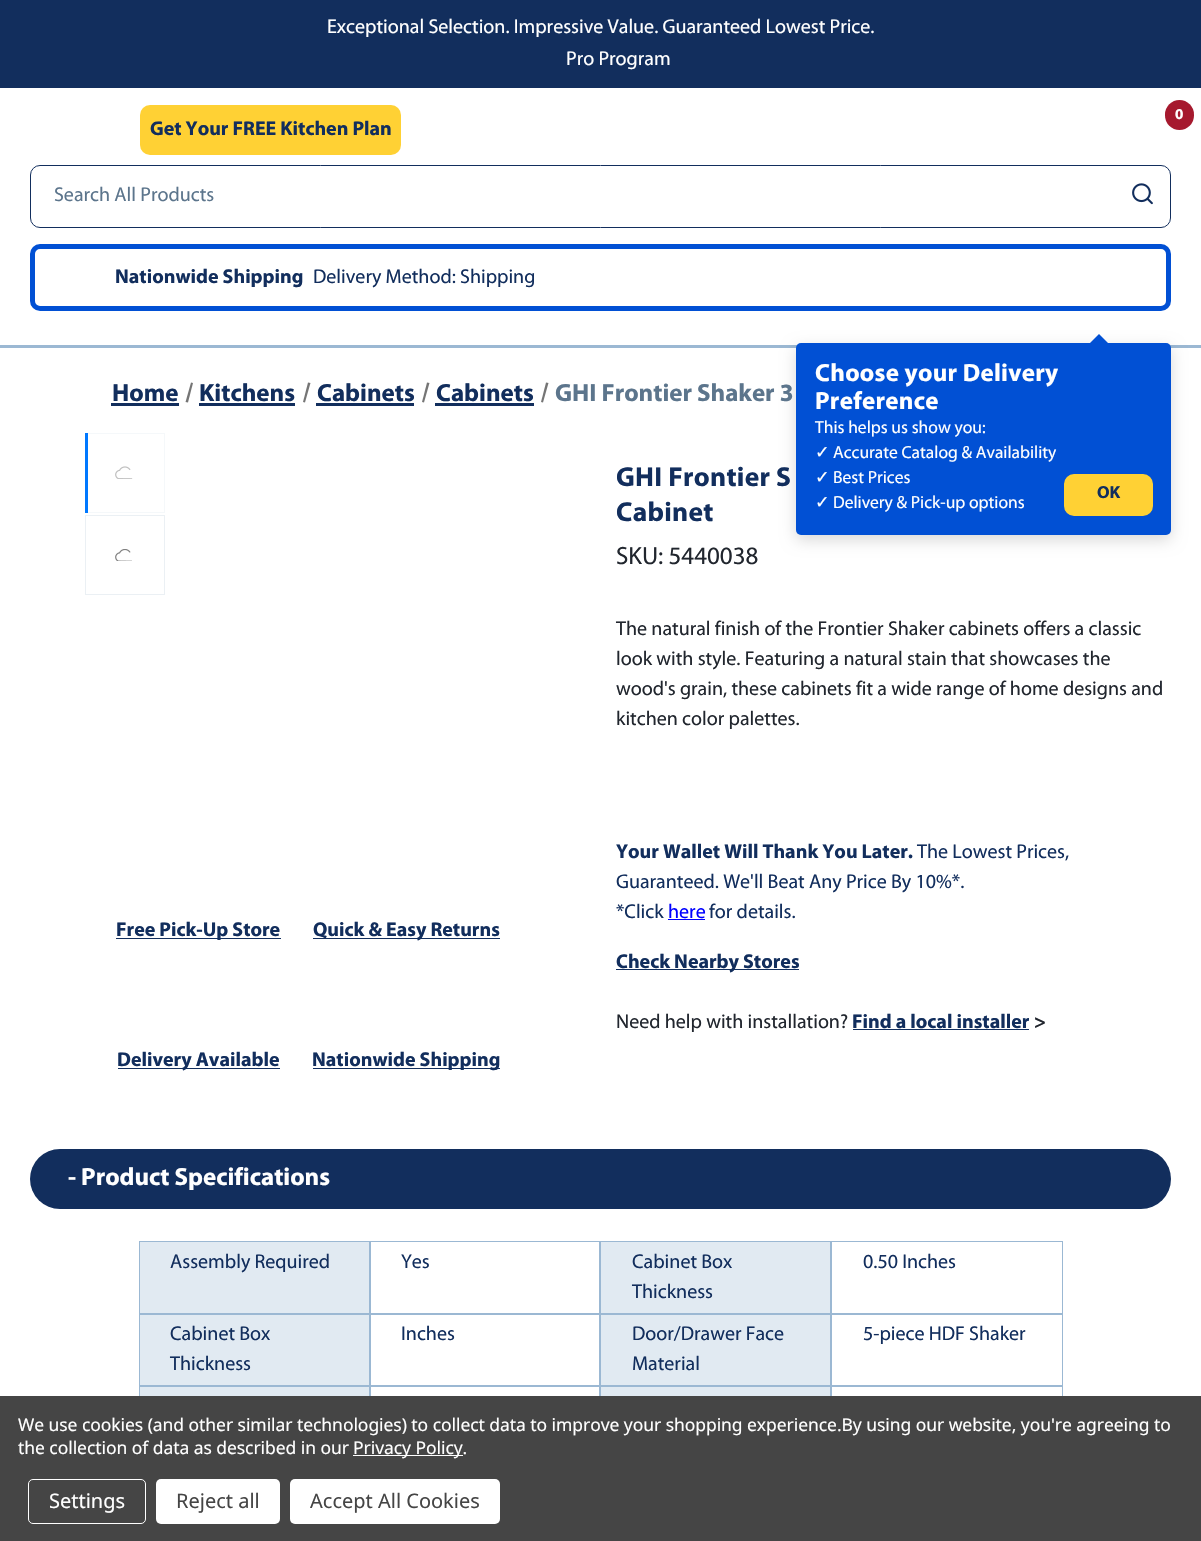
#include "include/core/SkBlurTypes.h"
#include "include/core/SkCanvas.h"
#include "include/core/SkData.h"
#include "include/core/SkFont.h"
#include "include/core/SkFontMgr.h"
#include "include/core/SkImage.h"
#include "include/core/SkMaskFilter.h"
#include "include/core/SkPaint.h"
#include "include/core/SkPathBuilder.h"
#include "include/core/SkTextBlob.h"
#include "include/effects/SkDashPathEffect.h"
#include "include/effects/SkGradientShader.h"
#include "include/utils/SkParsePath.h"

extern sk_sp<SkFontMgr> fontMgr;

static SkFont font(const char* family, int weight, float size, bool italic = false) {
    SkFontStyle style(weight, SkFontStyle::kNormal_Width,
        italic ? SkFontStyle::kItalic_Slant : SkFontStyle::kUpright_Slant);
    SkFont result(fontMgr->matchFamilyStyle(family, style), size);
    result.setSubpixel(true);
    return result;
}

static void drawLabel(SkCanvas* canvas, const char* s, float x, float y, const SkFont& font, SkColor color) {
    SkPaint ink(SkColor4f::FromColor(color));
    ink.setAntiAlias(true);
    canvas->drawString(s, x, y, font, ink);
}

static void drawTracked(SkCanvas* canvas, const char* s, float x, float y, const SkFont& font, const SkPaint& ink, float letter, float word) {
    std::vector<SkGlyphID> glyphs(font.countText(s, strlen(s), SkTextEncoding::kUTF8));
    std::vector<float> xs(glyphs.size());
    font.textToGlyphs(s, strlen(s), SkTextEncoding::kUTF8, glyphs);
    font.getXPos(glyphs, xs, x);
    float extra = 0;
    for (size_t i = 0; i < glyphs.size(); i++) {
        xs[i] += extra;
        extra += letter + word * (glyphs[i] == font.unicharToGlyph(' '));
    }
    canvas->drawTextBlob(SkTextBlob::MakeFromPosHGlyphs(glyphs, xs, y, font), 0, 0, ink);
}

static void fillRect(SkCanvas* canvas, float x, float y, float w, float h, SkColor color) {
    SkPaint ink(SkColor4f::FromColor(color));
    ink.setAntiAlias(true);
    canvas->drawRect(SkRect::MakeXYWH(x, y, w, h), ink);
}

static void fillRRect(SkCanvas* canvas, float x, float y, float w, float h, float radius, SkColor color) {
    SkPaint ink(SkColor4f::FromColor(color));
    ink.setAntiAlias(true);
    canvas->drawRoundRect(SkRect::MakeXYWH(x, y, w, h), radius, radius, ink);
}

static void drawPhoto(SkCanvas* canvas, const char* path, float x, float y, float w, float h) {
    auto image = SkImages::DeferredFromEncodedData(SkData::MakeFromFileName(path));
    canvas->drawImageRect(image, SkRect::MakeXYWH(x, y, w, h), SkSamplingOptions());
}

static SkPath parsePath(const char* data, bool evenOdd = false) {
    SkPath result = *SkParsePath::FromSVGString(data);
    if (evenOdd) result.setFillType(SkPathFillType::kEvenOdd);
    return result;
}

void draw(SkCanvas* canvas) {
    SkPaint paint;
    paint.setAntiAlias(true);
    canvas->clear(0xFFFFFFFF);
    fillRect(canvas, 0, 345, 1201, 3, 0xFF9BB8D3);
    fillRect(canvas, 0, 0, 1201, 88, 0xFF122E5D);
    SkFont font1 = font("Myriad", 400, 20);
    drawLabel(canvas, "Exceptional Selection. Impressive Value. Guaranteed Lowest Price.", 327, 33, font1, 0xFFFFFFFF);
    drawLabel(canvas, "Pro Program", 566, 65, font1, 0xFFFFFFFF);
    fillRRect(canvas, 1165, 100, 29, 30, 14.5f, 0xFFA6192E);
    SkFont font2 = font("Myriad", 700, 15);
    drawLabel(canvas, "0", 1175, 119, font2, 0xFFFFFFFF);
    fillRRect(canvas, 140, 105, 261, 50, 10, 0xFFFFD134);
    SkFont font3 = font("Myriad", 700, 20);
    drawLabel(canvas, "Get Your FREE Kitchen Plan", 150, 135, font3, 0xFF122E5D);
    paint.setStroke(true);
    paint.setStrokeWidth(1);
    paint.setColor(0xFF122E5D);
    canvas->drawRoundRect(SkRect::MakeXYWH(30.5f, 165.5f, 1140, 62), 9.5f, 9.5f, paint);
    drawLabel(canvas, "Search All Products", 54, 201, font1, 0xFF5C758C);
    drawPhoto(canvas, "assets/img1.png", 1132, 183, 21, 22);
    paint.setStrokeWidth(5);
    paint.setColor(0xFF0150D4);
    canvas->drawRoundRect(SkRect::MakeXYWH(32.5f, 246.5f, 1136, 62), 7.5f, 7.5f, paint);
    drawLabel(canvas, "Nationwide Shipping", 115, 283, font3, 0xFF122E5D);
    drawLabel(canvas, "Delivery Method: Shipping", 313, 283, font1, 0xFF122E5D);
    paint.setStroke(false);
    paint.setColor(0x26000000);
    paint.setMaskFilter(SkMaskFilter::MakeBlur(kNormal_SkBlurStyle, 7.5f));
    canvas->drawRoundRect(SkRect::MakeXYWH(796, 348, 375, 192), 5, 5, paint);
    paint.setMaskFilter(nullptr);
    fillRRect(canvas, 796, 343, 375, 192, 5, 0xFF0150D4);
    paint.setColor(0xFF0150D4);
    canvas->drawPath(parsePath("M1109 344H1089L1099 334Z"), paint);
    SkFont font4 = font("Myriad", 700, 25);
    paint.setColor(0xFFFFFFFF);
    drawTracked(canvas, "Choose your Delivery", 815, 381, font4, paint, 0.3f, 0);
    drawTracked(canvas, "Preference", 815, 409, font4, paint, 0.3f, 0);
    SkFont font5 = font("Myriad", 400, 17.5f);
    drawLabel(canvas, "This helps us show you:", 815, 433, font5, 0xFFFFFFFF);
    SkFont font6 = font("DejaVu Sans", 400, 17.5f);
    drawLabel(canvas, "✓", 815, 458, font6, 0xFFFFFFFF);
    drawLabel(canvas, "Accurate Catalog & Availability", 833, 458, font5, 0xFFFFFFFF);
    drawLabel(canvas, "✓", 815, 483, font6, 0xFFFFFFFF);
    drawLabel(canvas, "Best Prices", 833, 483, font5, 0xFFFFFFFF);
    drawLabel(canvas, "✓", 815, 508, font6, 0xFFFFFFFF);
    drawLabel(canvas, "Delivery & Pick-up options", 833, 508, font5, 0xFFFFFFFF);
    paint.setColor(0xFFFFD134);
    canvas->drawRoundRect(SkRect::MakeXYWH(1065.5f, 475.5f, 86, 39), 8.5f, 8.5f, paint);
    paint.setStroke(true);
    paint.setStrokeWidth(3);
    canvas->drawRoundRect(SkRect::MakeXYWH(1065.5f, 475.5f, 86, 39), 8.5f, 8.5f, paint);
    SkFont font7 = font("Myriad", 700, 17.5f);
    drawLabel(canvas, "OK", 1097, 498, font7, 0xFF122E5D);
    drawLabel(canvas, "Home", 112, 401, font4, 0xFF122E5D);
    fillRect(canvas, 111, 403, 68, 3, 0xFF122E5D);
    paint.setStroke(false);
    paint.setColor(0xFF757575);
    canvas->drawPath(parsePath("M191 382.5L193 383L188 402.5L185.5 402Z"), paint);
    drawLabel(canvas, "Kitchens", 199, 401, font4, 0xFF122E5D);
    fillRect(canvas, 199, 403, 96, 3, 0xFF122E5D);
    canvas->drawPath(parsePath("M308 382.5L310.5 383L305 402.5L303 402Z"), paint);
    drawLabel(canvas, "Cabinets", 317, 401, font4, 0xFF122E5D);
    fillRect(canvas, 316, 403, 98, 3, 0xFF122E5D);
    canvas->drawPath(parsePath("M427 382.5L429.5 383L424 402.5L422 402Z"), paint);
    drawLabel(canvas, "Cabinets", 436, 401, font4, 0xFF122E5D);
    fillRect(canvas, 435, 403, 99, 3, 0xFF122E5D);
    canvas->drawPath(parsePath("M546 382.5L548.5 383L543 402.5L541 402Z"), paint);
    drawLabel(canvas, "GHI Frontier Shaker 3", 555, 401, font4, 0xFF5C758C);
    SkFont font8 = font("Myriad", 700, 27.5f);
    paint.setColor(0xFF122E5D);
    drawTracked(canvas, "GHI Frontier S", 616, 486, font8, paint, 0.3f, 0);
    drawTracked(canvas, "Cabinet", 616, 521, font8, paint, 0.3f, 0);
    SkFont font9 = font("Myriad", 400, 25);
    drawLabel(canvas, "SKU: 5440038", 616, 564, font9, 0xFF21262E);
    drawLabel(canvas, "The natural finish of the Frontier Shaker cabinets offers a classic", 616, 635, font1, 0xFF21262E);
    drawLabel(canvas, "look with style. Featuring a natural stain that showcases the", 616, 665, font1, 0xFF21262E);
    drawLabel(canvas, "wood's grain, these cabinets fit a wide range of home designs and", 616, 695, font1, 0xFF21262E);
    drawLabel(canvas, "kitchen color palettes.", 616, 725, font1, 0xFF21262E);
    drawLabel(canvas, "Your Wallet Will Thank You Later.", 616, 858, font3, 0xFF122E5D);
    drawLabel(canvas, "The Lowest Prices,", 917, 858, font1, 0xFF122E5D);
    drawLabel(canvas, "Guaranteed. We'll Beat Any Price By 10%*.", 616, 888, font1, 0xFF122E5D);
    drawLabel(canvas, "*Click", 616, 918, font1, 0xFF122E5D);
    drawLabel(canvas, "here", 668, 918, font1, 0xFF0000FF);
    fillRect(canvas, 668, 919, 37, 1, 0xFF0000FF);
    drawLabel(canvas, "for details.", 709, 918, font1, 0xFF122E5D);
    paint.setStroke(true);
    paint.setStrokeWidth(1);
    paint.setColor(0xFFF5F8FA);
    canvas->drawRect(SkRect::MakeXYWH(85.5f, 433.5f, 79, 79), paint);
    drawPhoto(canvas, "assets/img2.png", 115, 466, 18, 13);
    fillRect(canvas, 85, 433, 3, 80, 0xFF0078FF);
    paint.setColor(0xFFEBF0F4);
    canvas->drawRect(SkRect::MakeXYWH(85.5f, 515.5f, 79, 79), paint);
    drawPhoto(canvas, "assets/img3.png", 115, 549, 17, 12);
    fillRect(canvas, 116, 938, 165, 1, 0xFF122E5D);
    drawLabel(canvas, "Free Pick-Up Store", 116, 936, font3, 0xFF122E5D);
    fillRect(canvas, 313, 938, 187, 1, 0xFF122E5D);
    drawLabel(canvas, "Quick & Easy Returns", 313, 936, font3, 0xFF122E5D);
    fillRect(canvas, 118, 1068, 162, 1, 0xFF122E5D);
    drawLabel(canvas, "Delivery Available", 117, 1066, font3, 0xFF122E5D);
    fillRect(canvas, 313, 1068, 187, 1, 0xFF122E5D);
    drawLabel(canvas, "Nationwide Shipping", 312, 1066, font3, 0xFF122E5D);
    fillRect(canvas, 616, 969, 183, 1, 0xFF122E5D);
    drawLabel(canvas, "Check Nearby Stores", 616, 968, font3, 0xFF122E5D);
    drawLabel(canvas, "Need help with installation?", 616, 1028, font1, 0xFF21262E);
    drawLabel(canvas, "Find a local installer", 852, 1028, font3, 0xFF122E5D);
    fillRect(canvas, 853, 1029, 176, 1, 0xFF122E5D);
    drawLabel(canvas, ">", 1034, 1028, font3, 0xFF21262E);
    fillRRect(canvas, 30, 1149, 1141, 60, 30, 0xFF122E5D);
    drawLabel(canvas, "- Product Specifications", 68, 1185, font4, 0xFFFFFFFF);
    paint.setStroke(false);
    paint.setColor(0xFFE1EAF2);
    canvas->drawRect(SkRect::MakeXYWH(139.5f, 1241.5f, 230, 72), paint);
    paint.setStroke(true);
    paint.setColor(0xFF9BB8D3);
    canvas->drawRect(SkRect::MakeXYWH(139.5f, 1241.5f, 230, 72), paint);
    drawLabel(canvas, "Assembly Required", 170, 1268, font1, 0xFF122E5D);
    canvas->drawRect(SkRect::MakeXYWH(370.5f, 1241.5f, 229, 72), paint);
    drawLabel(canvas, "Yes", 401, 1268, font1, 0xFF122E5D);
    paint.setStroke(false);
    paint.setColor(0xFFE1EAF2);
    canvas->drawRect(SkRect::MakeXYWH(600.5f, 1241.5f, 230, 72), paint);
    paint.setStroke(true);
    paint.setColor(0xFF9BB8D3);
    canvas->drawRect(SkRect::MakeXYWH(600.5f, 1241.5f, 230, 72), paint);
    drawLabel(canvas, "Cabinet Box", 632, 1268, font1, 0xFF122E5D);
    drawLabel(canvas, "Thickness", 632, 1298, font1, 0xFF122E5D);
    canvas->drawRect(SkRect::MakeXYWH(831.5f, 1241.5f, 231, 72), paint);
    drawLabel(canvas, "0.50 Inches", 863, 1268, font1, 0xFF122E5D);
    paint.setStroke(false);
    paint.setColor(0xFFE1EAF2);
    canvas->drawRect(SkRect::MakeXYWH(139.5f, 1314.5f, 230, 71), paint);
    paint.setStroke(true);
    paint.setColor(0xFF9BB8D3);
    canvas->drawRect(SkRect::MakeXYWH(139.5f, 1314.5f, 230, 71), paint);
    drawLabel(canvas, "Cabinet Box", 170, 1340, font1, 0xFF122E5D);
    drawLabel(canvas, "Thickness", 170, 1370, font1, 0xFF122E5D);
    canvas->drawRect(SkRect::MakeXYWH(370.5f, 1314.5f, 229, 71), paint);
    drawLabel(canvas, "Inches", 401, 1340, font1, 0xFF122E5D);
    paint.setStroke(false);
    paint.setColor(0xFFE1EAF2);
    canvas->drawRect(SkRect::MakeXYWH(600.5f, 1314.5f, 230, 71), paint);
    paint.setStroke(true);
    paint.setColor(0xFF9BB8D3);
    canvas->drawRect(SkRect::MakeXYWH(600.5f, 1314.5f, 230, 71), paint);
    drawLabel(canvas, "Door/Drawer Face", 632, 1340, font1, 0xFF122E5D);
    drawLabel(canvas, "Material", 632, 1370, font1, 0xFF122E5D);
    canvas->drawRect(SkRect::MakeXYWH(831.5f, 1314.5f, 231, 71), paint);
    drawLabel(canvas, "5-piece HDF Shaker", 863, 1340, font1, 0xFF122E5D);
    fillRect(canvas, 140, 1387, 229, 9, 0xFFE1EAF2);
    canvas->drawRect(SkRect::MakeXYWH(139.5f, 1386.5f, 230, 72), paint);
    canvas->drawRect(SkRect::MakeXYWH(370.5f, 1386.5f, 229, 72), paint);
    fillRect(canvas, 601, 1387, 229, 9, 0xFFE1EAF2);
    canvas->drawRect(SkRect::MakeXYWH(600.5f, 1386.5f, 230, 72), paint);
    canvas->drawRect(SkRect::MakeXYWH(831.5f, 1386.5f, 231, 72), paint);
    fillRect(canvas, 0, 1396, 1201, 145, 0xFF454545);
    SkFont font10 = font("Noto Sans", 400, 17.5f);
    paint.setStroke(false);
    paint.setColor(0xFFFFFFFF);
    drawTracked(canvas, "We use cookies (and other similar technologies) to collect data to improve your shopping experience.By using our website, you're agreeing to", 18, 1431, font10, paint, -0.06f, 0);
    drawTracked(canvas, "the collection of data as described in our", 18, 1454, font10, paint, -0.06f, 0);
    fillRect(canvas, 353, 1455, 110, 1, 0xFFFFFFFF);
    drawTracked(canvas, "Privacy Policy.", 353, 1454, font10, paint, -0.06f, 0);
    paint.setStroke(true);
    canvas->drawRoundRect(SkRect::MakeXYWH(28.5f, 1479.5f, 117, 44), 4.5f, 4.5f, paint);
    SkFont font11 = font("Noto Sans", 400, 20);
    drawLabel(canvas, "Settings", 49, 1508, font11, 0xFFFFFFFF);
    fillRRect(canvas, 156, 1479, 124, 45, 5, 0xFFFFFFFF);
    drawLabel(canvas, "Reject all", 176, 1508, font11, 0xFF454545);
    fillRRect(canvas, 290, 1479, 210, 45, 5, 0xFFFFFFFF);
    drawLabel(canvas, "Accept All Cookies", 310, 1508, font11, 0xFF454545);
}
